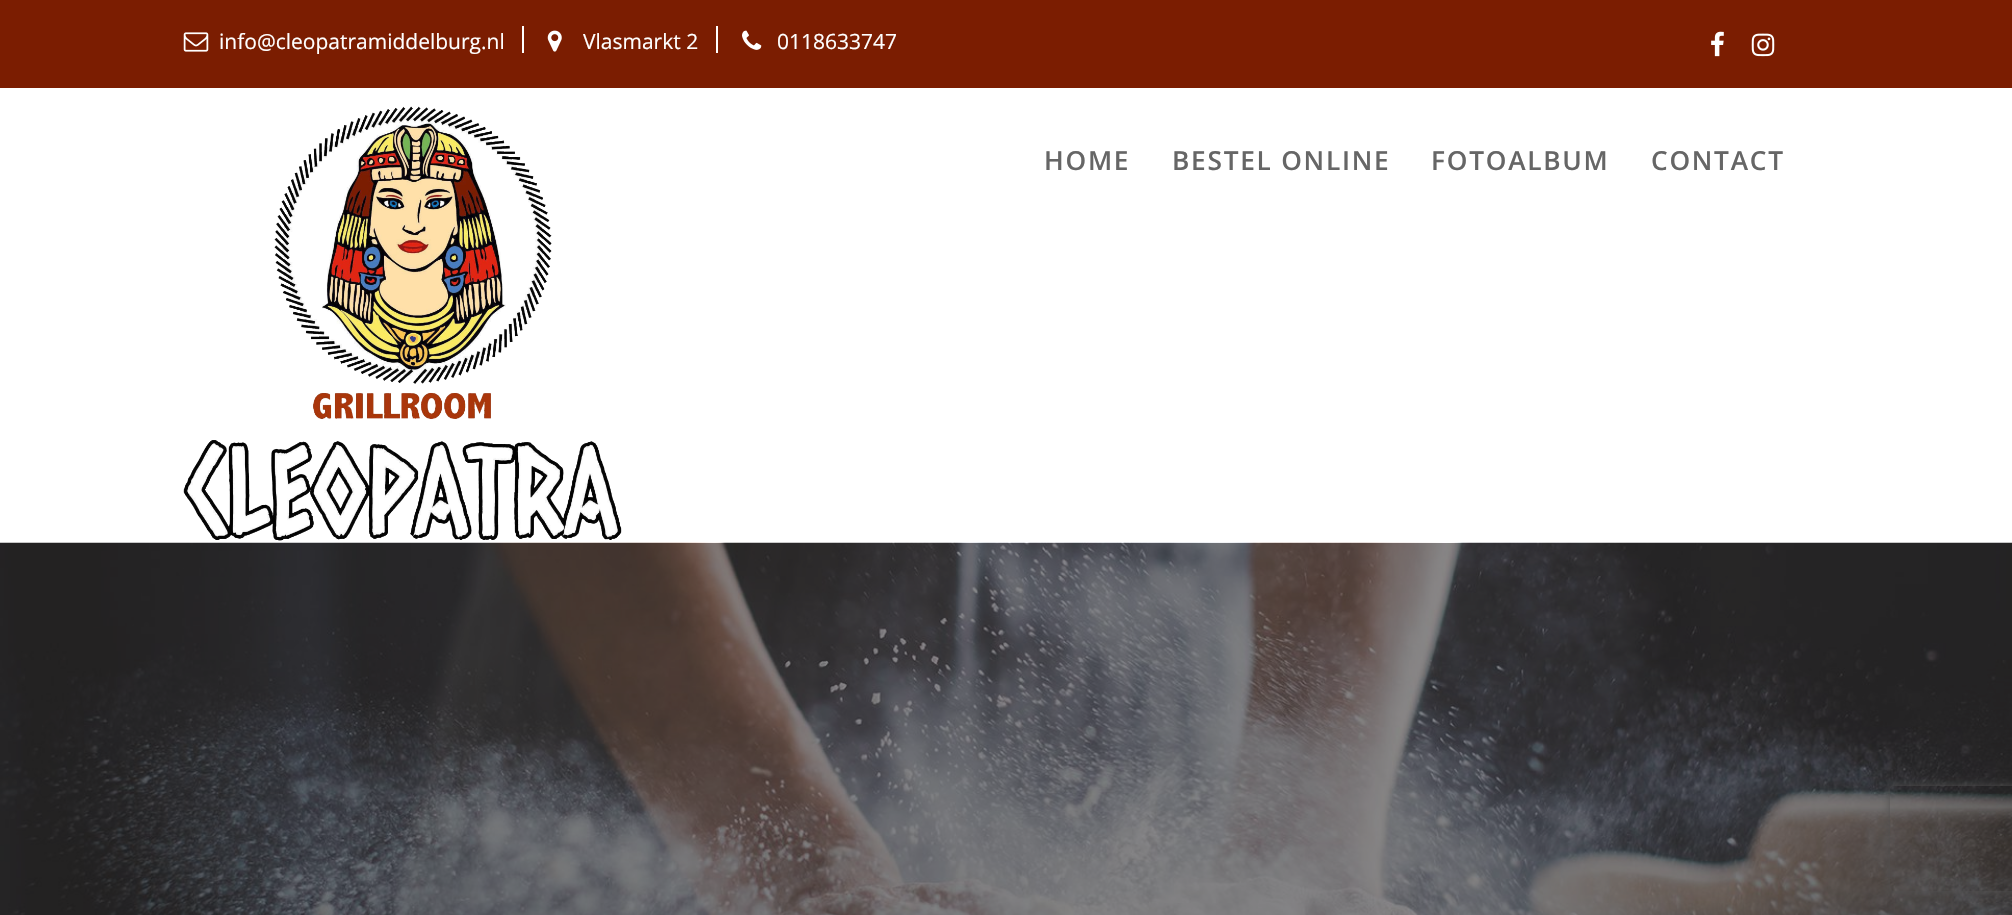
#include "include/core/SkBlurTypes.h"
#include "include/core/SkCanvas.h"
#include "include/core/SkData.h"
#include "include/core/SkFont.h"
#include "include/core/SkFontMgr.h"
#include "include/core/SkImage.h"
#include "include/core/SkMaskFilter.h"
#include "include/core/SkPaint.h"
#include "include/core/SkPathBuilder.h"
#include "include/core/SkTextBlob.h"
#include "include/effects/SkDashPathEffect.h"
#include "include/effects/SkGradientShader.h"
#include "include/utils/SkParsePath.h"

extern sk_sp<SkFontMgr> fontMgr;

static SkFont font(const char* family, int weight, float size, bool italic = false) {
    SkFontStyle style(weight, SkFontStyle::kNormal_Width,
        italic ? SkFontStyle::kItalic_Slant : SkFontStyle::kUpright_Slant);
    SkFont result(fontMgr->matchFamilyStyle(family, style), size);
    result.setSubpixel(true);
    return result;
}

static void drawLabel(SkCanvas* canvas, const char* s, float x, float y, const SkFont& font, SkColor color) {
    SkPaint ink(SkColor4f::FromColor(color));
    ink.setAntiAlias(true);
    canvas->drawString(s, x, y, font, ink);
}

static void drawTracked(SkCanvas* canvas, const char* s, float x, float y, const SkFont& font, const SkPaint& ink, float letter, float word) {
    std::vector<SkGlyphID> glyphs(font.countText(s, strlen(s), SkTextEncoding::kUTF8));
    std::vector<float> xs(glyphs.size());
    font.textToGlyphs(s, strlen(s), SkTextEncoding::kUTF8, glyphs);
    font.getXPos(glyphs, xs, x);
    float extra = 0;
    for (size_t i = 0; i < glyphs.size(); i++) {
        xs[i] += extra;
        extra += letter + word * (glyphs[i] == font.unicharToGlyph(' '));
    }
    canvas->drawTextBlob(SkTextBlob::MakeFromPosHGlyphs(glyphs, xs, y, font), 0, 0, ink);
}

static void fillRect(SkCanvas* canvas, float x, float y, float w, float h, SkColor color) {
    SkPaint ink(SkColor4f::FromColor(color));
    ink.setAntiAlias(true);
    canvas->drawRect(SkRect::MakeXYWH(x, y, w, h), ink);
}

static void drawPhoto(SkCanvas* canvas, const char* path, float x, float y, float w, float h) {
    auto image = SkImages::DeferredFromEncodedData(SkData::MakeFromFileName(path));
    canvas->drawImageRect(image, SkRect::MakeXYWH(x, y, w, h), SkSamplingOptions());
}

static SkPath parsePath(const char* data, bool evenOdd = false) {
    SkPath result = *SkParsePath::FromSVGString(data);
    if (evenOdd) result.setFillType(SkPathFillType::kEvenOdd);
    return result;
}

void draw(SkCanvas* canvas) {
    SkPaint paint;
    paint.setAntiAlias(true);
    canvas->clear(0xFFFFFFFF);
    fillRect(canvas, 0, 0, 2012, 88, 0xFF7B1D01);
    fillRect(canvas, 522, 26, 2, 27, 0xFFFFFFFF);
    drawPhoto(canvas, "assets/img1.png", 183, 32, 26, 20);
    SkFont font1 = font("Open Sans", 400, 21);
    drawLabel(canvas, "info@cleopatramiddelburg.nl", 219, 49, font1, 0xFFFFFFFF);
    fillRect(canvas, 716, 26, 2, 27, 0xFFFFFFFF);
    drawPhoto(canvas, "assets/img2.png", 547, 30, 15, 22);
    drawLabel(canvas, "Vlasmarkt 2", 583, 49, font1, 0xFFFFFFFF);
    drawPhoto(canvas, "assets/img3.png", 742, 30, 20, 20);
    drawLabel(canvas, "0118633747", 777, 49, font1, 0xFFFFFFFF);
    drawPhoto(canvas, "assets/img4.png", 1711, 31, 13, 26);
    drawPhoto(canvas, "assets/img5.png", 1751, 33, 24, 24);
    drawPhoto(canvas, "assets/img6.png", 183, 106, 439, 435);
    SkFont font2 = font("Open Sans", 600, 26.25f);
    paint.setColor(0xFF666666);
    drawTracked(canvas, "HOME", 1044, 170, font2, paint, 1.75f, 0);
    drawTracked(canvas, "BESTEL ONLINE", 1172, 170, font2, paint, 1.75f, 0);
    drawTracked(canvas, "FOTOALBUM", 1431, 170, font2, paint, 1.75f, 0);
    drawTracked(canvas, "CONTACT", 1651, 170, font2, paint, 1.75f, 0);
    drawPhoto(canvas, "assets/img7.png", 0, 542, 2012, 373);
    canvas->save();
    canvas->clipPath(parsePath("M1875 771H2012V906H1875ZM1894 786H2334C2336 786 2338 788 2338 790V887C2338 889 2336 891 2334 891H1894C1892 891 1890 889 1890 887V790C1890 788 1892 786 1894 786Z", true), true);
    paint.setColor(0xFF504F4F);
    paint.setMaskFilter(SkMaskFilter::MakeBlur(kNormal_SkBlurStyle, 4.5f));
    canvas->drawRoundRect(SkRect::MakeXYWH(1890, 786, 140, 105), 4, 4, paint);
    paint.setMaskFilter(nullptr);
    canvas->restore();
}
